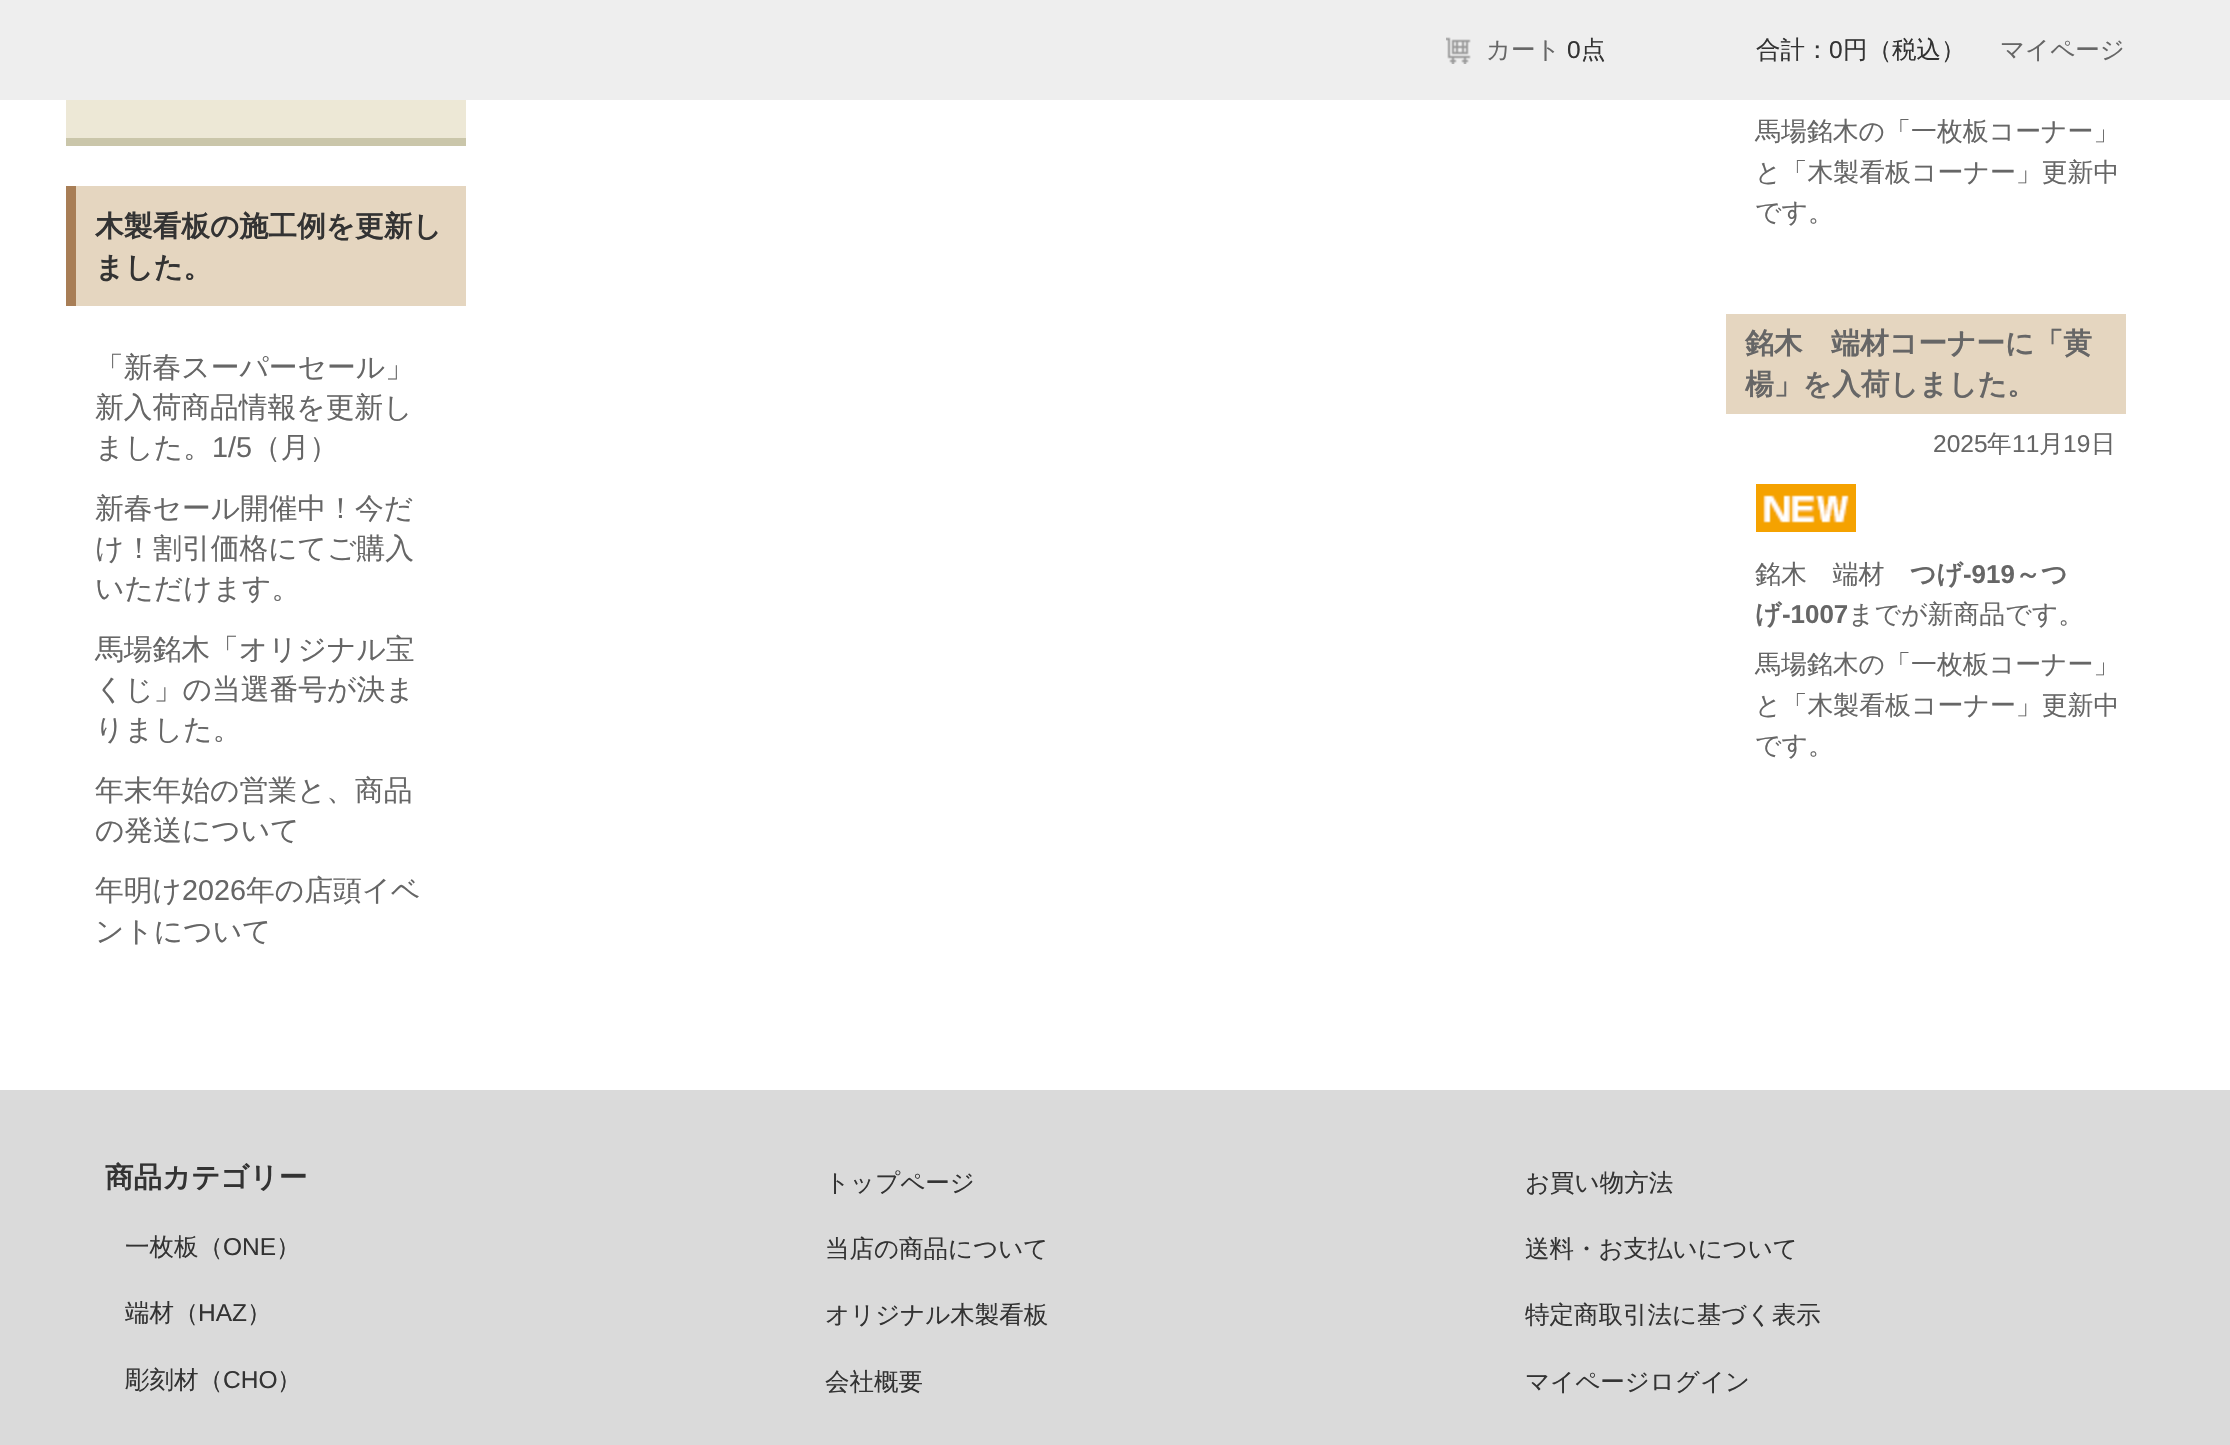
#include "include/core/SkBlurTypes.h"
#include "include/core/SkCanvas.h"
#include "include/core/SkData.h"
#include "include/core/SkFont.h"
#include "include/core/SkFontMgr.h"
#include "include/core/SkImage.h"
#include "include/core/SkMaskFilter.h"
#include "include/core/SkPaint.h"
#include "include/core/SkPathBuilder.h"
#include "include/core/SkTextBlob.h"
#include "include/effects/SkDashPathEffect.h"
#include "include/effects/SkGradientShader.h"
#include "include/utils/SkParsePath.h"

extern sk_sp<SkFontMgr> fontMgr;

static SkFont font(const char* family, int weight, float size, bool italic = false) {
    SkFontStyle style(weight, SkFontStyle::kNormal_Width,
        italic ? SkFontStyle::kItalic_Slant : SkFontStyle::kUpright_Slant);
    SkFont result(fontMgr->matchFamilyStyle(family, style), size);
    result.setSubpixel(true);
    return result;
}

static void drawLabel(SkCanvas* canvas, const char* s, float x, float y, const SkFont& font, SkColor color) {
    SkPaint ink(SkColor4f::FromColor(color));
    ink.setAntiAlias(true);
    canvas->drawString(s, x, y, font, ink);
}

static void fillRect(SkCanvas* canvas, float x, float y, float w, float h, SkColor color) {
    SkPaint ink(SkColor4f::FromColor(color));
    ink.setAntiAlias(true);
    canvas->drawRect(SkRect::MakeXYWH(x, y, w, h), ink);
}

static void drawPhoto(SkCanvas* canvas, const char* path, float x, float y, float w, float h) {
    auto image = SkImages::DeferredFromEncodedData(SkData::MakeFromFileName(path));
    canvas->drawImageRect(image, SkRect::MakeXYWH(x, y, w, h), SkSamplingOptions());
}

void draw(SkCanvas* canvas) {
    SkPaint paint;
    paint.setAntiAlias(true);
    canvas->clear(0xFFFFFFFF);
    fillRect(canvas, 0, 0, 2230, 100, 0xFFEEEEEE);
    drawPhoto(canvas, "assets/img1.png", 1446, 37, 25, 27);
    SkFont font1 = font("WenQuanYi Zen Hei", 500, 24.5f);
    drawLabel(canvas, "カート", 1486, 58, font1, 0xFF666666);
    SkFont font2 = font("Liberation Sans", 400, 24.5f);
    drawLabel(canvas, "0", 1567, 58, font2, 0xFF333333);
    drawLabel(canvas, "点", 1581, 58, font1, 0xFF333333);
    drawLabel(canvas, "合計：", 1756, 58, font1, 0xFF333333);
    drawLabel(canvas, "0", 1829, 58, font2, 0xFF333333);
    drawLabel(canvas, "円（税込）", 1843, 58, font1, 0xFF333333);
    drawLabel(canvas, "マイページ", 2000, 58, font1, 0xFF666666);
    fillRect(canvas, 66, 100, 400, 38, 0xFFEDE8D6);
    fillRect(canvas, 66, 138, 400, 8, 0xFFCAC6AA);
    fillRect(canvas, 76, 186, 390, 120, 0xFFE5D6C0);
    fillRect(canvas, 66, 186, 10, 120, 0xFFA87E56);
    SkFont font3 = font("WenQuanYi Zen Hei", 700, 28.75f);
    drawLabel(canvas, "木製看板の施工例を更新し", 95, 236, font3, 0xFF333333);
    drawLabel(canvas, "ました。", 95, 277, font3, 0xFF333333);
    SkFont font4 = font("WenQuanYi Zen Hei", 500, 28.75f);
    drawLabel(canvas, "「新春スーパーセール」", 95, 377, font4, 0xFF666666);
    drawLabel(canvas, "新入荷商品情報を更新し", 95, 417, font4, 0xFF666666);
    drawLabel(canvas, "ました。", 95, 457, font4, 0xFF666666);
    SkFont font5 = font("Liberation Sans", 400, 28.75f);
    drawLabel(canvas, "1/5", 212, 457, font5, 0xFF666666);
    drawLabel(canvas, "（月）", 252, 457, font4, 0xFF666666);
    drawLabel(canvas, "新春セール開催中！今だ", 95, 518, font4, 0xFF666666);
    drawLabel(canvas, "け！割引価格にてご購入", 95, 558, font4, 0xFF666666);
    drawLabel(canvas, "いただけます。", 95, 598, font4, 0xFF666666);
    drawLabel(canvas, "馬場銘木「オリジナル宝", 95, 659, font4, 0xFF666666);
    drawLabel(canvas, "くじ」の当選番号が決ま", 95, 699, font4, 0xFF666666);
    drawLabel(canvas, "りました。", 95, 739, font4, 0xFF666666);
    drawLabel(canvas, "年末年始の営業と、商品", 95, 800, font4, 0xFF666666);
    drawLabel(canvas, "の発送について", 95, 840, font4, 0xFF666666);
    drawLabel(canvas, "年明け", 95, 900, font4, 0xFF666666);
    drawLabel(canvas, "2026", 182, 900, font5, 0xFF666666);
    drawLabel(canvas, "年の店頭イベ", 246, 900, font4, 0xFF666666);
    drawLabel(canvas, "ントについて", 95, 941, font4, 0xFF666666);
    SkFont font6 = font("WenQuanYi Zen Hei", 500, 25.9f);
    drawLabel(canvas, "馬場銘木の「一枚板コーナー」", 1755, 140, font6, 0xFF666666);
    drawLabel(canvas, "と「木製看板コーナー」更新中", 1755, 181, font6, 0xFF666666);
    drawLabel(canvas, "です。", 1755, 221, font6, 0xFF666666);
    fillRect(canvas, 1726, 314, 400, 100, 0xFFE5D6C0);
    drawLabel(canvas, "銘木　端材コーナーに「黄", 1745, 353, font3, 0xFF666666);
    drawLabel(canvas, "楊」を入荷しました。", 1745, 394, font3, 0xFF666666);
    drawLabel(canvas, "2025", 1933, 452, font2, 0xFF666666);
    drawLabel(canvas, "年", 1987, 452, font1, 0xFF666666);
    drawLabel(canvas, "11", 2012, 452, font2, 0xFF666666);
    drawLabel(canvas, "月", 2039, 452, font1, 0xFF666666);
    drawLabel(canvas, "19", 2063, 452, font2, 0xFF666666);
    drawLabel(canvas, "日", 2091, 452, font1, 0xFF666666);
    drawPhoto(canvas, "assets/img2.png", 1756, 484, 100, 48);
    drawLabel(canvas, "銘木　端材", 1755, 583, font6, 0xFF666666);
    SkFont font7 = font("WenQuanYi Zen Hei", 700, 25.9f);
    drawLabel(canvas, "つげ", 1910, 583, font7, 0xFF666666);
    SkFont font8 = font("Liberation Sans", 700, 25.9f);
    drawLabel(canvas, "-919", 1963, 583, font8, 0xFF666666);
    drawLabel(canvas, "～つ", 2015, 583, font7, 0xFF666666);
    drawLabel(canvas, "げ", 1755, 623, font7, 0xFF666666);
    drawLabel(canvas, "-1007", 1782, 623, font8, 0xFF666666);
    drawLabel(canvas, "までが新商品です。", 1848, 623, font6, 0xFF666666);
    drawLabel(canvas, "馬場銘木の「一枚板コーナー」", 1755, 673, font6, 0xFF666666);
    drawLabel(canvas, "と「木製看板コーナー」更新中", 1755, 714, font6, 0xFF666666);
    drawLabel(canvas, "です。", 1755, 754, font6, 0xFF666666);
    fillRect(canvas, 0, 1090, 2230, 355, 0xFFDADADA);
    SkFont font9 = font("WenQuanYi Zen Hei", 700, 28.5f);
    drawLabel(canvas, "商品カテゴリー", 105, 1187, font9, 0xFF333333);
    drawLabel(canvas, "一枚板（", 125, 1255, font1, 0xFF333333);
    drawLabel(canvas, "ONE", 223, 1255, font2, 0xFF333333);
    drawLabel(canvas, "）", 276, 1255, font1, 0xFF333333);
    drawLabel(canvas, "端材（", 125, 1321, font1, 0xFF333333);
    drawLabel(canvas, "HAZ", 198, 1321, font2, 0xFF333333);
    drawLabel(canvas, "）", 247, 1321, font1, 0xFF333333);
    drawLabel(canvas, "彫刻材（", 125, 1388, font1, 0xFF333333);
    drawLabel(canvas, "CHO", 223, 1388, font2, 0xFF333333);
    drawLabel(canvas, "）", 277, 1388, font1, 0xFF333333);
    drawLabel(canvas, "トップページ", 825, 1191, font1, 0xFF333333);
    drawLabel(canvas, "当店の商品について", 825, 1257, font1, 0xFF333333);
    drawLabel(canvas, "オリジナル木製看板", 825, 1323, font1, 0xFF333333);
    drawLabel(canvas, "会社概要", 825, 1390, font1, 0xFF333333);
    drawLabel(canvas, "お買い物方法", 1525, 1191, font1, 0xFF333333);
    drawLabel(canvas, "送料・お支払いについて", 1525, 1257, font1, 0xFF333333);
    drawLabel(canvas, "特定商取引法に基づく表示", 1525, 1323, font1, 0xFF333333);
    drawLabel(canvas, "マイページログイン", 1525, 1390, font1, 0xFF333333);
}
